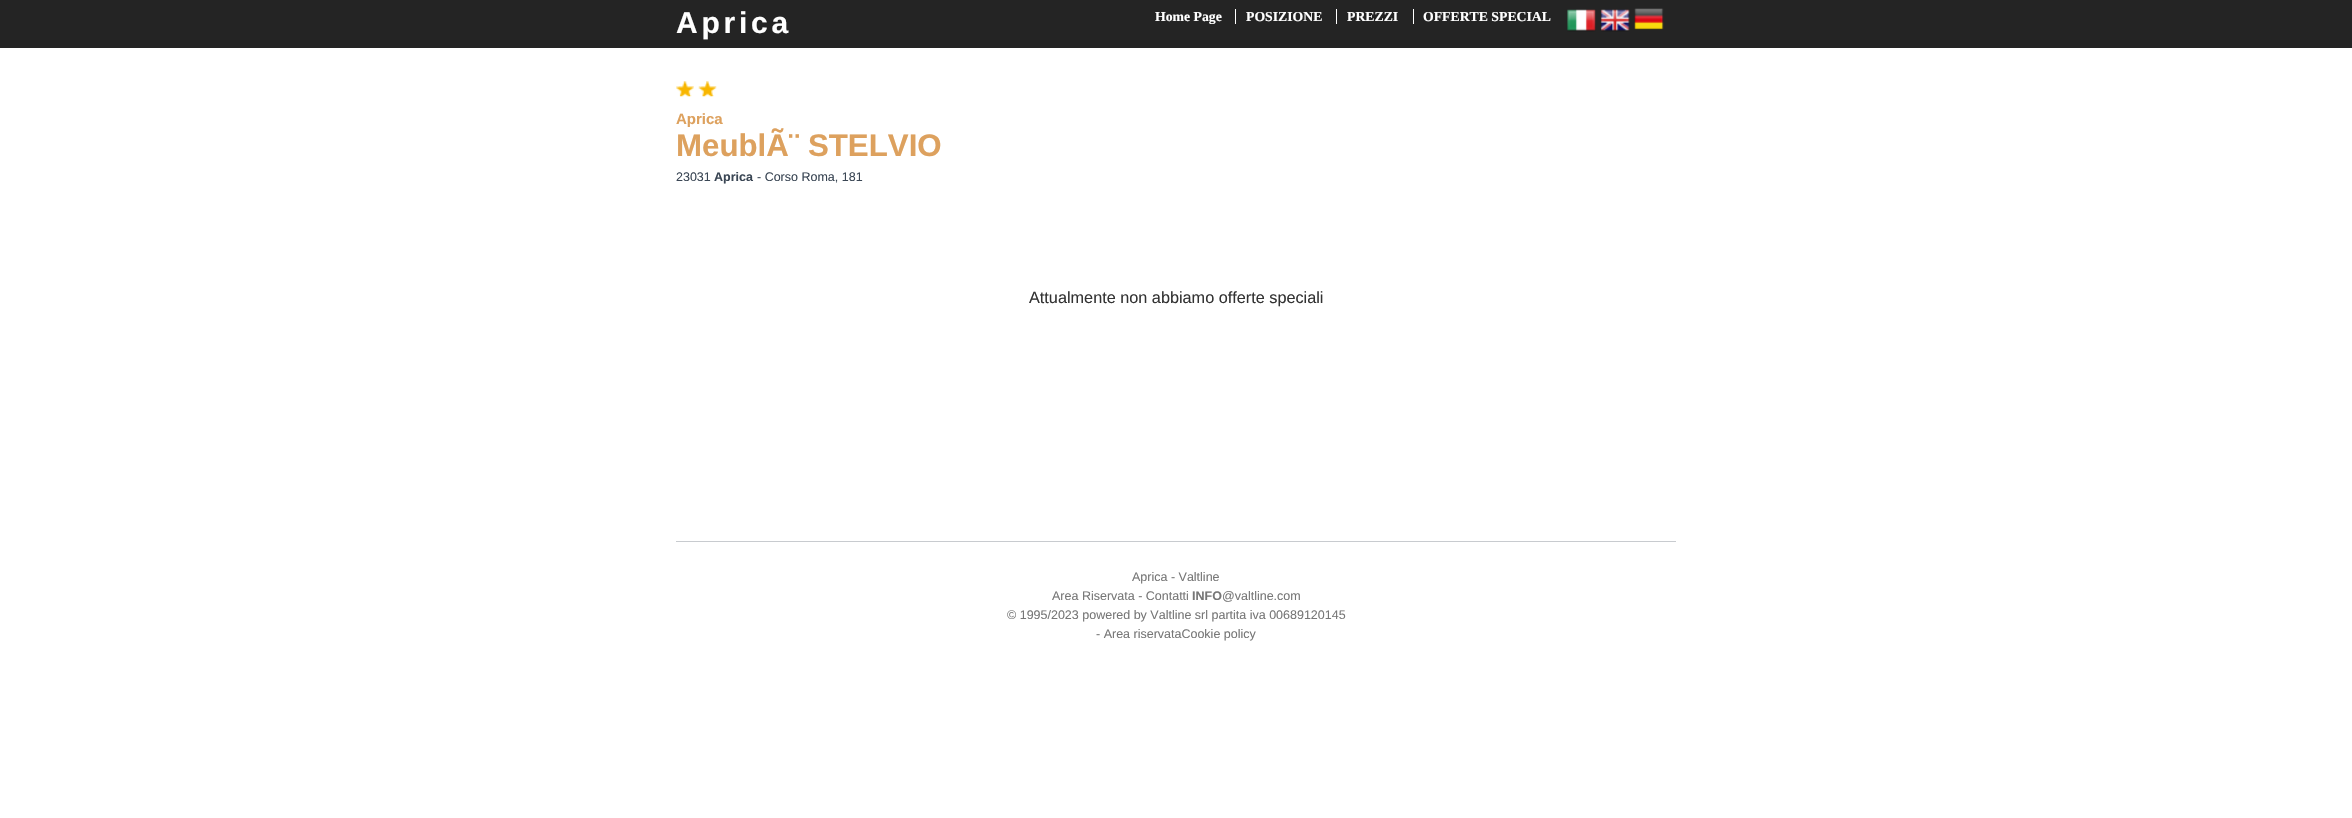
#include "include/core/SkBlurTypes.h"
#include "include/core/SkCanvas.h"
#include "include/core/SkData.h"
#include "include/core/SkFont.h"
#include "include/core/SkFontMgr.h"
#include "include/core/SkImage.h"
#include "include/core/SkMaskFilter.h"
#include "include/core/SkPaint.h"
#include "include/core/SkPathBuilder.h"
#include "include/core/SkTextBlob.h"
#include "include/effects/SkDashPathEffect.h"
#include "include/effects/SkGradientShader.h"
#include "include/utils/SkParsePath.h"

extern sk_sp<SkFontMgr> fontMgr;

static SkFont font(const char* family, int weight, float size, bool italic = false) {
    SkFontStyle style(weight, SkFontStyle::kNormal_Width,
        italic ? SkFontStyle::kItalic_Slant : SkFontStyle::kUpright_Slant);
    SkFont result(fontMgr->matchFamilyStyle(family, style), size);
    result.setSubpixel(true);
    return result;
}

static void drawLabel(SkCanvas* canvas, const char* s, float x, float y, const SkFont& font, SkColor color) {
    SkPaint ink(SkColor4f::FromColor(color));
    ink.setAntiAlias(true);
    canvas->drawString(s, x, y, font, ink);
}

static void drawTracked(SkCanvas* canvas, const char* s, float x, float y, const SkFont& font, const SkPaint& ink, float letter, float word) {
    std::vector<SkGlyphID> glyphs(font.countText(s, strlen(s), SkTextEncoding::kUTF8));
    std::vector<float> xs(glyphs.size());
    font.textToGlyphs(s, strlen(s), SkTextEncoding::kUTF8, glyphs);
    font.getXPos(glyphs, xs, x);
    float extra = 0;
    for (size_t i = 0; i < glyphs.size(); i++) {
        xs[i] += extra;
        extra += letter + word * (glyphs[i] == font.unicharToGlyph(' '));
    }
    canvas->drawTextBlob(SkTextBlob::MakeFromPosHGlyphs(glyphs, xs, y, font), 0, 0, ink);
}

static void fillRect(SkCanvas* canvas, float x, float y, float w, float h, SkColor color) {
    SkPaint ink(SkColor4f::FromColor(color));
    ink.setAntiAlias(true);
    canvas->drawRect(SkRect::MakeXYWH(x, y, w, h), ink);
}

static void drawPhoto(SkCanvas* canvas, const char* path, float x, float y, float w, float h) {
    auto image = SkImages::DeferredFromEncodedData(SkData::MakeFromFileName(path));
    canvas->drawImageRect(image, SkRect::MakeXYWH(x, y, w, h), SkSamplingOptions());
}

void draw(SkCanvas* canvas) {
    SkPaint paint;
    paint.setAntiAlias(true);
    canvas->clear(0xFFFFFFFF);
    fillRect(canvas, 0, 0, 2352, 48, 0xFF242424);
    SkFont font1 = font("Liberation Sans", 700, 30);
    paint.setColor(0xFFFFFFFF);
    drawTracked(canvas, "Aprica", 676, 33, font1, paint, 3.75f, 0);
    SkFont font2 = font("Liberation Serif", 700, 13.75f);
    drawLabel(canvas, "Home Page", 1155, 21, font2, 0xFFFFFFFF);
    fillRect(canvas, 1235, 9, 1, 15, 0xFFFFFFFF);
    drawLabel(canvas, "POSIZIONE", 1246, 21, font2, 0xFFFFFFFF);
    fillRect(canvas, 1336, 9, 1, 15, 0xFFFFFFFF);
    drawLabel(canvas, "PREZZI", 1347, 21, font2, 0xFFFFFFFF);
    fillRect(canvas, 1413, 9, 1, 15, 0xFFFFFFFF);
    drawLabel(canvas, "OFFERTE SPECIAL", 1423, 21, font2, 0xFFFFFFFF);
    drawPhoto(canvas, "assets/img1.png", 1567, 9, 29, 23);
    drawPhoto(canvas, "assets/img2.png", 1600, 9, 30, 23);
    drawPhoto(canvas, "assets/img3.png", 1634, 8, 30, 22);
    drawPhoto(canvas, "assets/img4.png", 676, 81, 18, 16);
    drawPhoto(canvas, "assets/img5.png", 698, 81, 19, 16);
    SkFont font3 = font("Liberation Sans", 700, 15);
    drawLabel(canvas, "Aprica", 676, 124, font3, 0xFFDDA15E);
    SkFont font4 = font("Liberation Sans", 700, 31.25f);
    drawLabel(canvas, "MeublÃ¨ STELVIO", 676, 156, font4, 0xFFDDA15E);
    SkFont font5 = font("Liberation Sans", 400, 12.5f);
    drawLabel(canvas, "23031", 676, 181, font5, 0xFF3A4654);
    SkFont font6 = font("Liberation Sans", 700, 12.5f);
    drawLabel(canvas, "Aprica", 714, 181, font6, 0xFF3A4654);
    drawLabel(canvas, "- Corso Roma, 181", 757, 181, font5, 0xFF3A4654);
    SkFont font7 = font("Liberation Sans", 400, 16.25f);
    drawLabel(canvas, "Attualmente non abbiamo offerte speciali", 1029, 303, font7, 0xFF333333);
    fillRect(canvas, 676, 541, 1000, 1, 0xFFC8CBCF);
    drawLabel(canvas, "Aprica - Valtline", 1132, 581, font5, 0xFF777777);
    drawLabel(canvas, "Area Riservata - Contatti", 1052, 600, font5, 0xFF777777);
    drawLabel(canvas, "INFO", 1192, 600, font6, 0xFF777777);
    drawLabel(canvas, "@valtline.com", 1222, 600, font5, 0xFF777777);
    drawLabel(canvas, "© 1995/2023 powered by Valtline srl partita iva 00689120145", 1007, 619, font5, 0xFF777777);
    drawLabel(canvas, "- Area riservataCookie policy", 1096, 638, font5, 0xFF777777);
}
